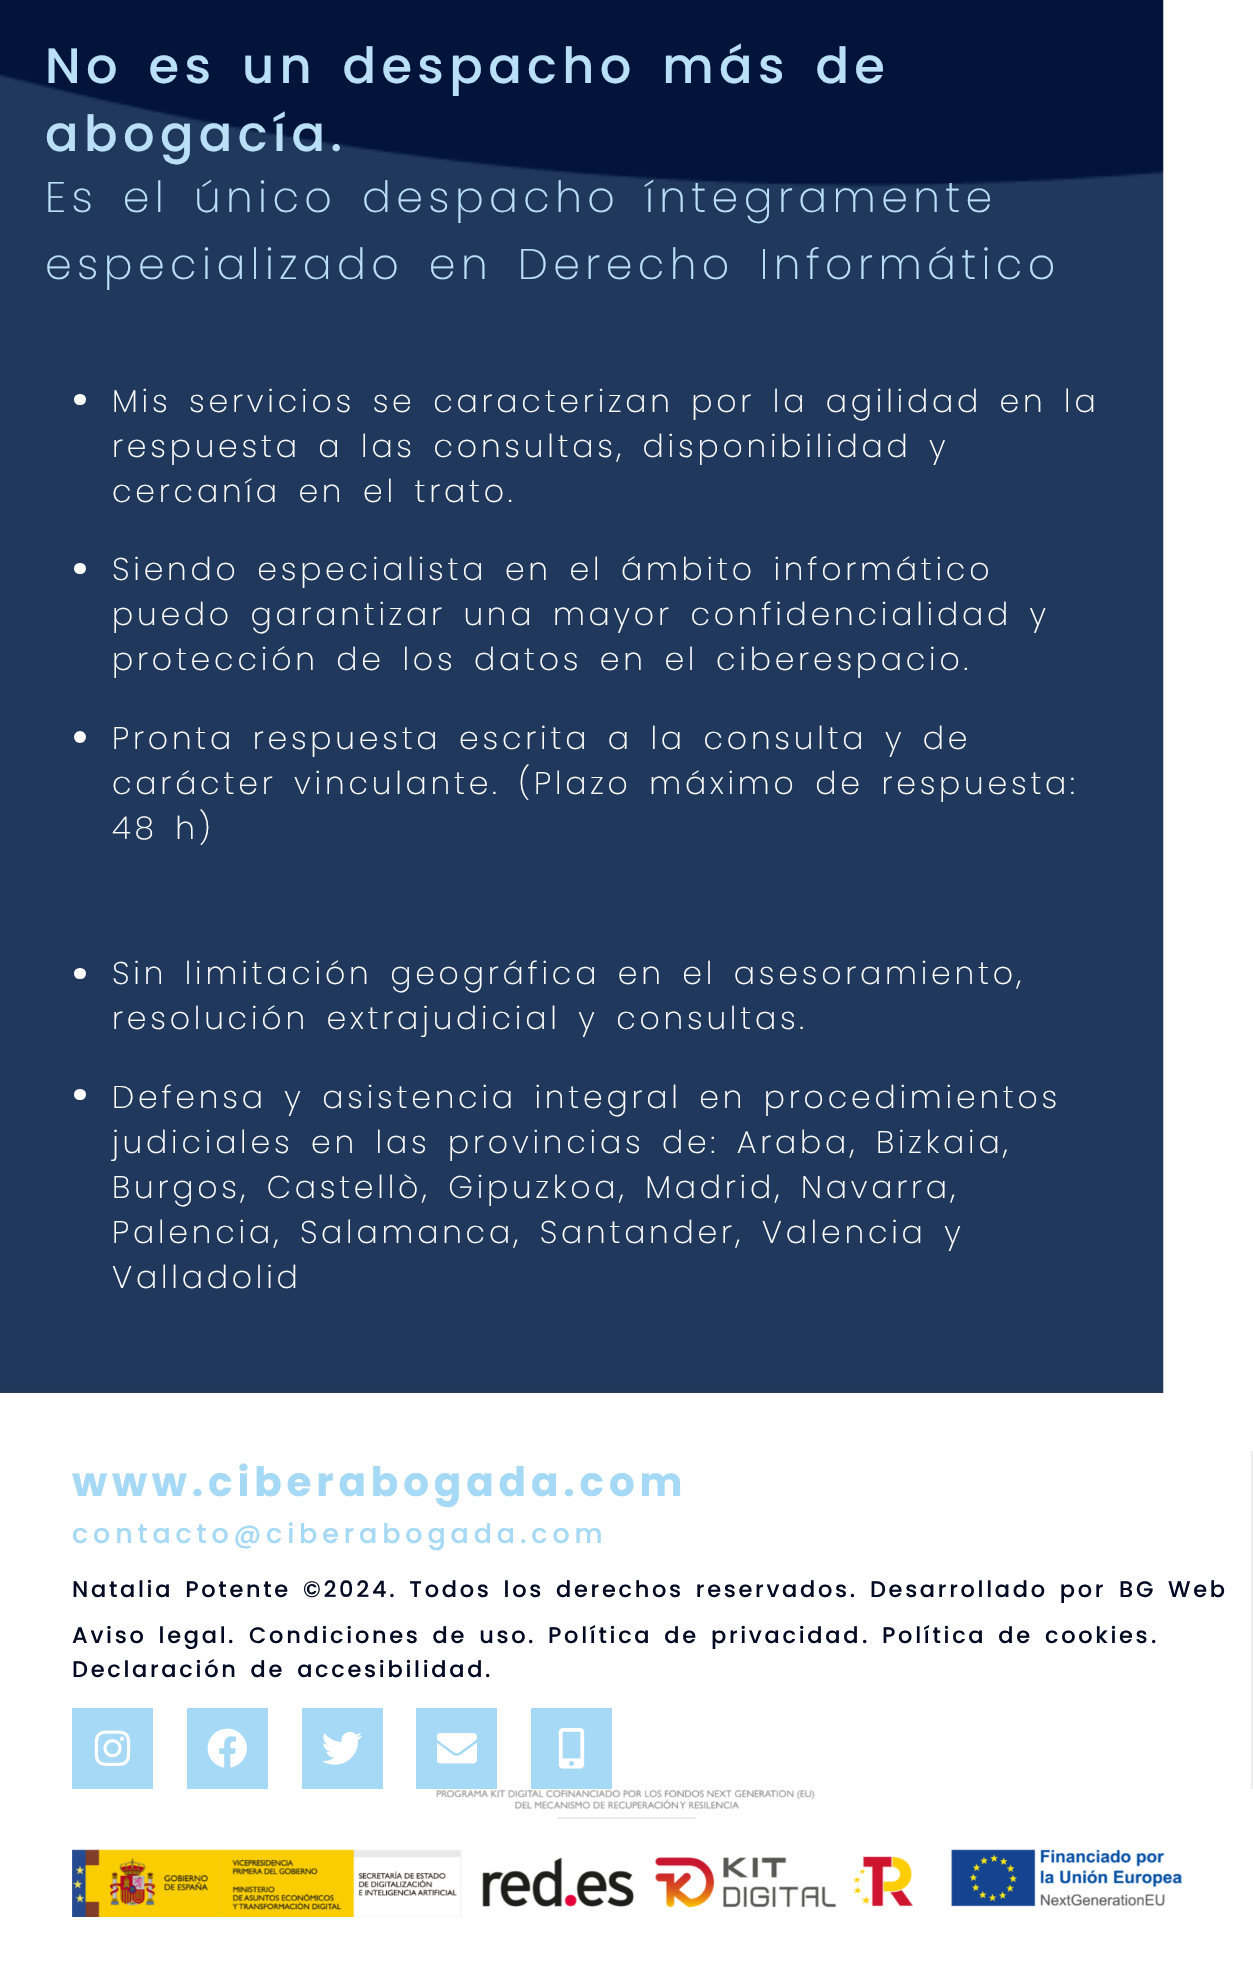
#include "include/core/SkBlurTypes.h"
#include "include/core/SkCanvas.h"
#include "include/core/SkData.h"
#include "include/core/SkFont.h"
#include "include/core/SkFontMgr.h"
#include "include/core/SkImage.h"
#include "include/core/SkMaskFilter.h"
#include "include/core/SkPaint.h"
#include "include/core/SkPathBuilder.h"
#include "include/core/SkTextBlob.h"
#include "include/effects/SkDashPathEffect.h"
#include "include/effects/SkGradientShader.h"
#include "include/utils/SkParsePath.h"

extern sk_sp<SkFontMgr> fontMgr;

static SkFont font(const char* family, int weight, float size, bool italic = false) {
    SkFontStyle style(weight, SkFontStyle::kNormal_Width,
        italic ? SkFontStyle::kItalic_Slant : SkFontStyle::kUpright_Slant);
    SkFont result(fontMgr->matchFamilyStyle(family, style), size);
    result.setSubpixel(true);
    return result;
}

static void drawTracked(SkCanvas* canvas, const char* s, float x, float y, const SkFont& font, const SkPaint& ink, float letter, float word) {
    std::vector<SkGlyphID> glyphs(font.countText(s, strlen(s), SkTextEncoding::kUTF8));
    std::vector<float> xs(glyphs.size());
    font.textToGlyphs(s, strlen(s), SkTextEncoding::kUTF8, glyphs);
    font.getXPos(glyphs, xs, x);
    float extra = 0;
    for (size_t i = 0; i < glyphs.size(); i++) {
        xs[i] += extra;
        extra += letter + word * (glyphs[i] == font.unicharToGlyph(' '));
    }
    canvas->drawTextBlob(SkTextBlob::MakeFromPosHGlyphs(glyphs, xs, y, font), 0, 0, ink);
}

static void fillRect(SkCanvas* canvas, float x, float y, float w, float h, SkColor color) {
    SkPaint ink(SkColor4f::FromColor(color));
    ink.setAntiAlias(true);
    canvas->drawRect(SkRect::MakeXYWH(x, y, w, h), ink);
}

static void fillRRect(SkCanvas* canvas, float x, float y, float w, float h, float radius, SkColor color) {
    SkPaint ink(SkColor4f::FromColor(color));
    ink.setAntiAlias(true);
    canvas->drawRoundRect(SkRect::MakeXYWH(x, y, w, h), radius, radius, ink);
}

static void drawPhoto(SkCanvas* canvas, const char* path, float x, float y, float w, float h) {
    auto image = SkImages::DeferredFromEncodedData(SkData::MakeFromFileName(path));
    canvas->drawImageRect(image, SkRect::MakeXYWH(x, y, w, h), SkSamplingOptions());
}

void draw(SkCanvas* canvas) {
    SkPaint paint;
    paint.setAntiAlias(true);
    canvas->clear(0xFFFFFFFF);
    drawPhoto(canvas, "assets/img1.png", 0, 0, 1164, 1393);
    SkFont font1 = font("Poppins", 500, 49.5f);
    paint.setColor(0xFFBAE0F7);
    drawTracked(canvas, "No es un despacho más de", 45, 83, font1, paint, 5.4f, 7.25f);
    drawTracked(canvas, "abogacía.", 45, 151, font1, paint, 5.4f, 0);
    SkFont font2 = font("Poppins", 200, 42.75f);
    drawTracked(canvas, "Es el único despacho íntegramente", 45, 212, font2, paint, 5.4f, 7.25f);
    drawTracked(canvas, "especializado en Derecho Informático", 45, 279, font2, paint, 5.4f, 7.25f);
    fillRRect(canvas, 74, 394, 12, 11, 5.5f, 0xFFFFFFFF);
    SkFont font3 = font("Poppins", 200, 31.5f);
    paint.setColor(0xFFFFFFFF);
    drawTracked(canvas, "Mis servicios se caracterizan por la agilidad en la", 112, 412, font3, paint, 3.78f, 5);
    drawTracked(canvas, "respuesta a las consultas, disponibilidad y", 112, 457, font3, paint, 3.78f, 5);
    drawTracked(canvas, "cercanía en el trato.", 112, 502, font3, paint, 3.78f, 5);
    fillRRect(canvas, 74, 563, 12, 11, 5.5f, 0xFFFFFFFF);
    drawTracked(canvas, "Siendo especialista en el ámbito informático", 112, 580, font3, paint, 3.78f, 5);
    drawTracked(canvas, "puedo garantizar una mayor confidencialidad y", 112, 625, font3, paint, 3.78f, 5);
    drawTracked(canvas, "protección de los datos en el ciberespacio.", 112, 670, font3, paint, 3.78f, 5);
    canvas->drawCircle(80, 737, 6, paint);
    drawTracked(canvas, "Pronta respuesta escrita a la consulta y de", 112, 749, font3, paint, 3.78f, 5);
    drawTracked(canvas, "carácter vinculante. (Plazo máximo de respuesta:", 112, 794, font3, paint, 3.78f, 5);
    drawTracked(canvas, "48 h)", 112, 839, font3, paint, 3.78f, 5);
    fillRRect(canvas, 74, 968, 12, 11, 5.5f, 0xFFFFFFFF);
    drawTracked(canvas, "Sin limitación geográfica en el asesoramiento,", 112, 984, font3, paint, 3.78f, 5);
    drawTracked(canvas, "resolución extrajudicial y consultas.", 112, 1029, font3, paint, 3.78f, 5);
    fillRRect(canvas, 74, 1089, 12, 11, 5.5f, 0xFFFFFFFF);
    drawTracked(canvas, "Defensa y asistencia integral en procedimientos", 112, 1108, font3, paint, 3.78f, 5);
    drawTracked(canvas, "judiciales en las provincias de: Araba, Bizkaia,", 112, 1153, font3, paint, 3.78f, 5);
    drawTracked(canvas, "Burgos, Castellò, Gipuzkoa, Madrid, Navarra,", 112, 1198, font3, paint, 3.78f, 5);
    drawTracked(canvas, "Palencia, Salamanca, Santander, Valencia y", 112, 1243, font3, paint, 3.78f, 5);
    drawTracked(canvas, "Valladolid", 112, 1288, font3, paint, 3.78f, 0);
    fillRect(canvas, 1251, 1451, 2, 338, 0xFFEDEDED);
    SkFont font4 = font("Poppins", 700, 40.5f);
    paint.setColor(0xFFA5D9F5);
    drawTracked(canvas, "www.ciberabogada.com", 72, 1496, font4, paint, 4.85f, 0);
    SkFont font5 = font("Poppins", 500, 27);
    drawTracked(canvas, "contacto@ciberabogada.com", 72, 1543, font5, paint, 4.85f, 0);
    SkFont font6 = font("Poppins", 500, 22.5f);
    paint.setColor(0xFF020A23);
    drawTracked(canvas, "Natalia Potente ©2024. Todos los derechos reservados. Desarrollado por", 72, 1597, font6, paint, 2.7f, 3.5f);
    drawTracked(canvas, "BG Web", 1119, 1597, font6, paint, 2.7f, 3.5f);
    drawTracked(canvas, "Aviso legal", 72, 1643, font6, paint, 2.7f, 3.5f);
    drawTracked(canvas, ".", 228, 1643, font6, paint, 2.7f, 0);
    drawTracked(canvas, "Condiciones de uso", 249, 1643, font6, paint, 2.7f, 3.5f);
    drawTracked(canvas, ".", 528, 1643, font6, paint, 2.7f, 0);
    drawTracked(canvas, "Política de privacidad", 548, 1643, font6, paint, 2.7f, 3.5f);
    drawTracked(canvas, ".", 862, 1643, font6, paint, 2.7f, 0);
    drawTracked(canvas, "Política de cookies", 882, 1643, font6, paint, 2.7f, 3.5f);
    drawTracked(canvas, ".", 1151, 1643, font6, paint, 2.7f, 0);
    drawTracked(canvas, "Declaración de accesibilidad", 72, 1677, font6, paint, 2.7f, 3.5f);
    drawTracked(canvas, ".", 485, 1677, font6, paint, 2.7f, 0);
    fillRect(canvas, 72, 1708, 81, 81, 0xFFA5D9F5);
    drawPhoto(canvas, "assets/img2.png", 94, 1730, 37, 36);
    fillRect(canvas, 187, 1708, 81, 81, 0xFFA5D9F5);
    drawPhoto(canvas, "assets/img3.png", 207, 1728, 40, 40);
    fillRect(canvas, 302, 1708, 81, 81, 0xFFA5D9F5);
    drawPhoto(canvas, "assets/img4.png", 322, 1731, 40, 34);
    fillRect(canvas, 416, 1708, 81, 81, 0xFFA5D9F5);
    drawPhoto(canvas, "assets/img5.png", 437, 1733, 40, 31);
    fillRect(canvas, 531, 1708, 81, 81, 0xFFA5D9F5);
    drawPhoto(canvas, "assets/img6.png", 558, 1728, 27, 41);
    drawPhoto(canvas, "assets/img7.png", 72, 1789, 1110, 128);
}
